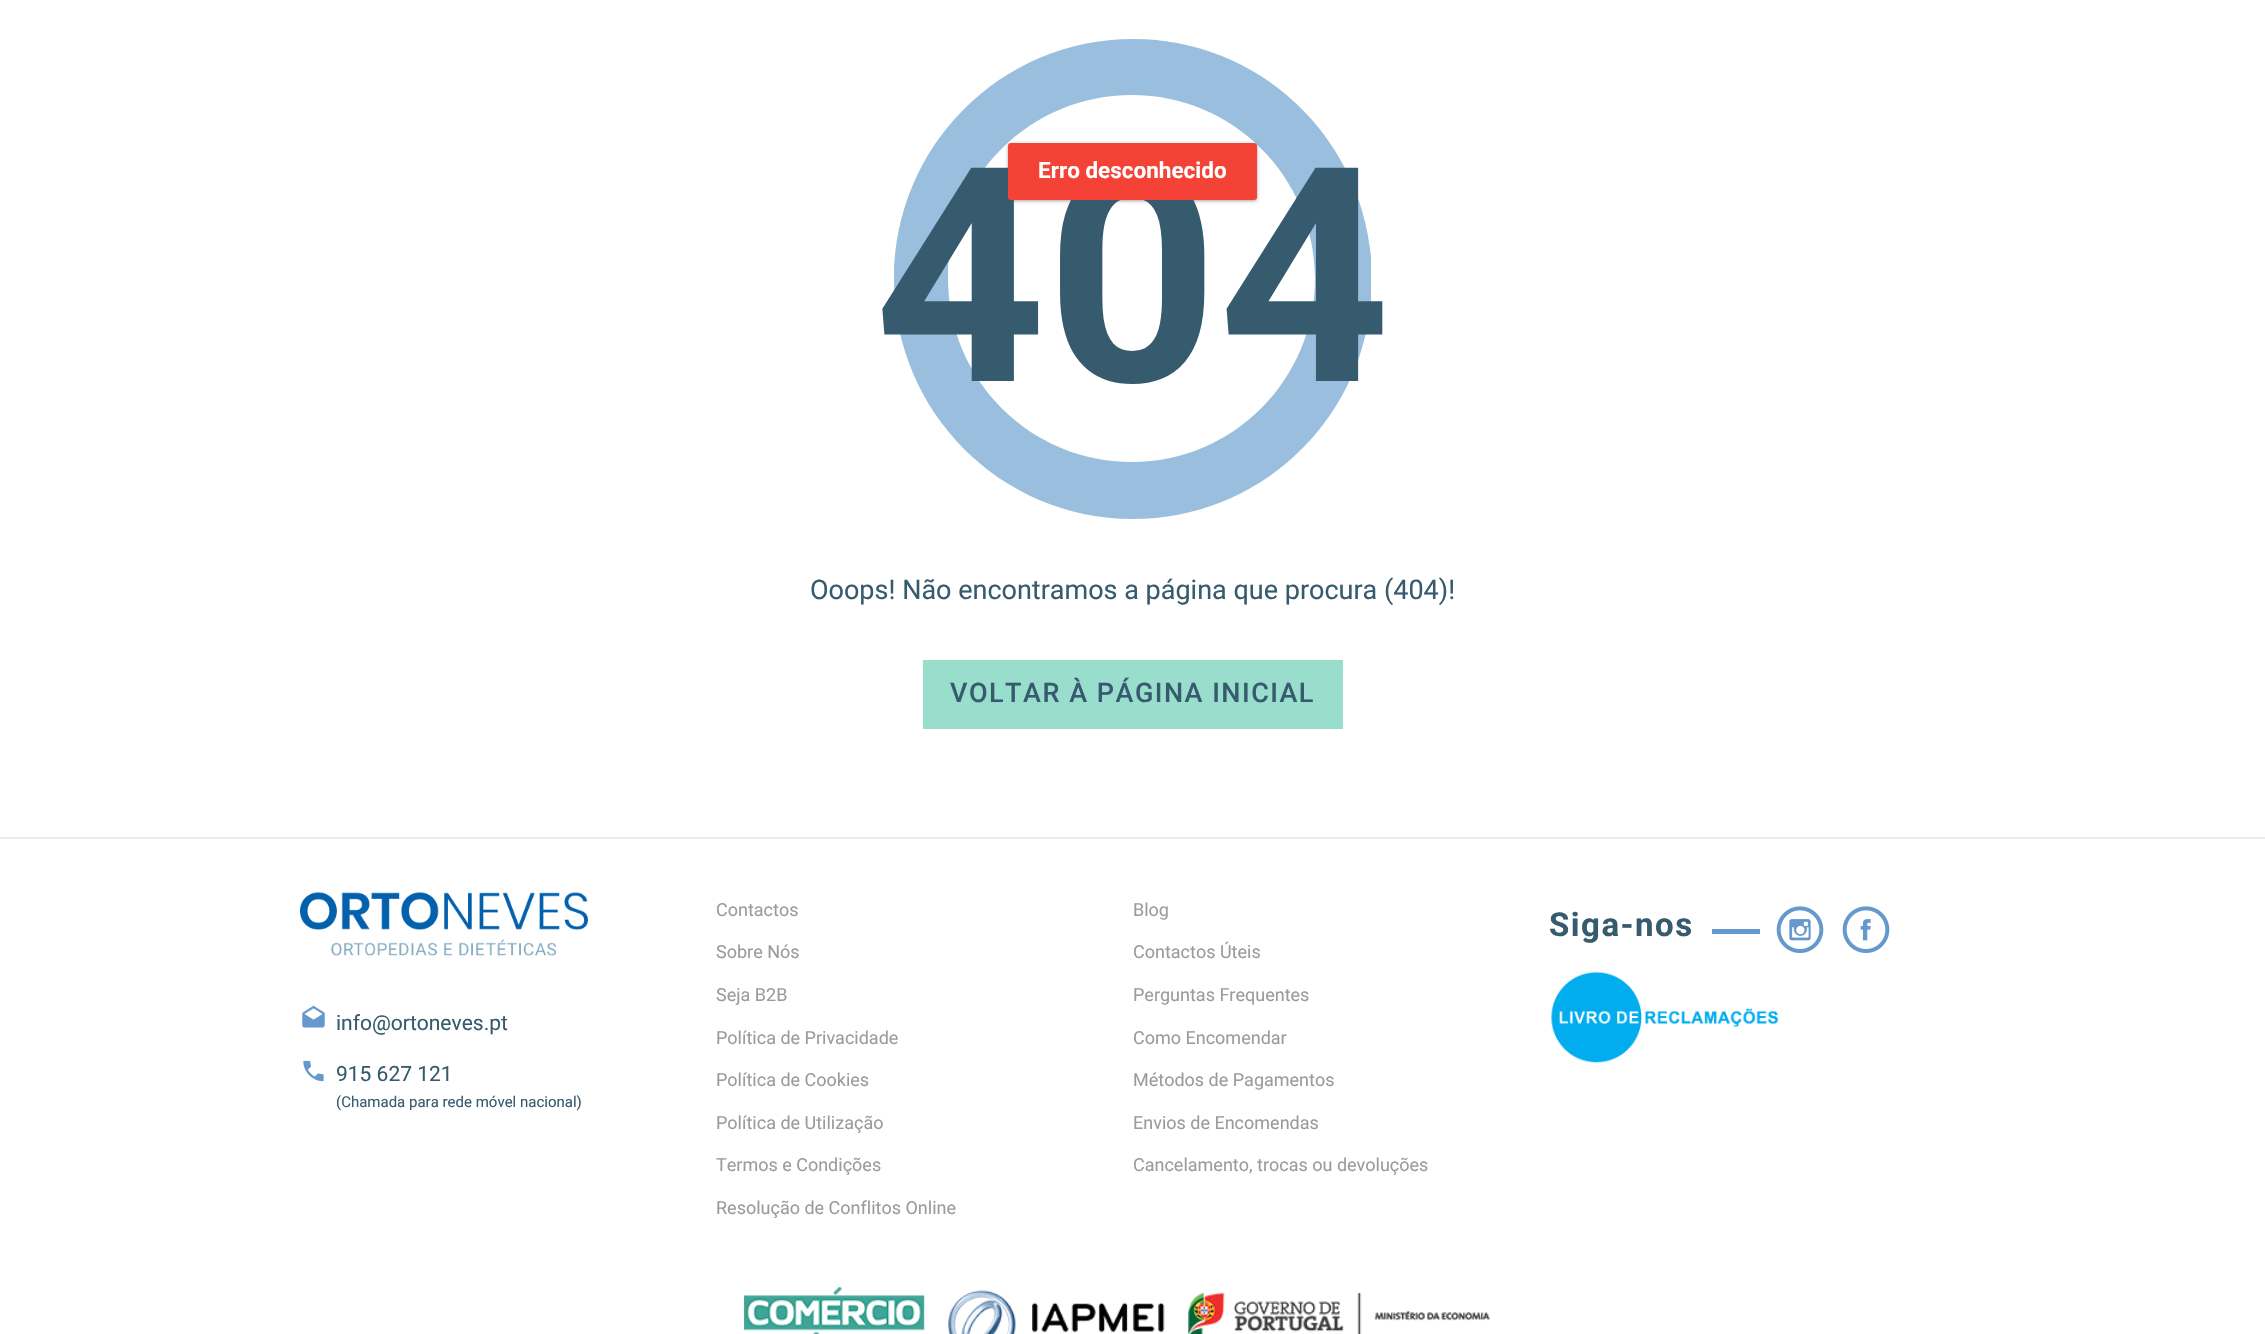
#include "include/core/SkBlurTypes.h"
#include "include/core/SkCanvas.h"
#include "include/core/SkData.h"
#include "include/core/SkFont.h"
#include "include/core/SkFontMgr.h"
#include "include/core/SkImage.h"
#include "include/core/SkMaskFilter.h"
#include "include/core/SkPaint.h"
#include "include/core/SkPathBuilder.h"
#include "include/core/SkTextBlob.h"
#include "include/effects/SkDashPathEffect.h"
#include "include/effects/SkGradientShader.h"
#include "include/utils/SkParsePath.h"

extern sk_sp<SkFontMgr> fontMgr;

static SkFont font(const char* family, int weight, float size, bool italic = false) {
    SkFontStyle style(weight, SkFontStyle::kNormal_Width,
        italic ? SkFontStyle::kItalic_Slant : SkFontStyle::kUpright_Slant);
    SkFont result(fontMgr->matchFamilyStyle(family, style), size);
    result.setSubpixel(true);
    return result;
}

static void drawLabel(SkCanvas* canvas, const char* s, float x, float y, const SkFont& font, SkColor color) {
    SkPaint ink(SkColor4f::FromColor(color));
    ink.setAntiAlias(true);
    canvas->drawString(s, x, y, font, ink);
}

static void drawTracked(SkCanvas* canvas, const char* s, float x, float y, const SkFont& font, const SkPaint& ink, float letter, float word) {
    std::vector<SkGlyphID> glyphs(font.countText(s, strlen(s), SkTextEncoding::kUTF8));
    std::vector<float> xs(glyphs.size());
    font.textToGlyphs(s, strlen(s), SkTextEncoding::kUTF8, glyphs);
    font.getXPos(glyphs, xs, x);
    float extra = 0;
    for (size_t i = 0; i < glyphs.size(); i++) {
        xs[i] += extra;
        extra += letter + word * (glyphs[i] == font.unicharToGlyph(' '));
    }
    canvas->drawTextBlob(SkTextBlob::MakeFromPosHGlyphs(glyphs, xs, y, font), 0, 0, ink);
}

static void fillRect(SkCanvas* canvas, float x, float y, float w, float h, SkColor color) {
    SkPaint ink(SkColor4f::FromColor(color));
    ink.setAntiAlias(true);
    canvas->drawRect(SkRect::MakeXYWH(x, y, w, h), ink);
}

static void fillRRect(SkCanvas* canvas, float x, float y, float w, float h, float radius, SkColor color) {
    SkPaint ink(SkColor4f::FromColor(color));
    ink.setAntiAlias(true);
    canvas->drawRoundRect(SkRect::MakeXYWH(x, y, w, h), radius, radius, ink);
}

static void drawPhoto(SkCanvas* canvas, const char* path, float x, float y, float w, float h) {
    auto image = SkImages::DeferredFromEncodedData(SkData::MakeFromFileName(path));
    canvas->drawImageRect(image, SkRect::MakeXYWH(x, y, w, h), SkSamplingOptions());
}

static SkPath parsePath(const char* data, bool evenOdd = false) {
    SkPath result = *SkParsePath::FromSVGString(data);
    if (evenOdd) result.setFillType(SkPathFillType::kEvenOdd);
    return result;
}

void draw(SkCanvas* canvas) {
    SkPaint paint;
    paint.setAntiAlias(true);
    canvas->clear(0xFFFFFFFF);
    canvas->save();
    canvas->clipRect(SkRect::MakeXYWH(894, 39, 477, 480));
    paint.setColor(0xFF9ABFDE);
    canvas->drawPath(parsePath("M1132 462C1030 462 948 380 948 278C948 177 1030 95 1132 95C1233 95 1315 177 1315 278C1315 380 1233 462 1132 462M1133 39C1001 39 894 146 894 279C894 412 1001 519 1133 519C1265 519 1372 412 1372 279C1372 146 1265 39 1133 39", true), paint);
    canvas->restore();
    paint.setColor(0x3D000000);
    paint.setMaskFilter(SkMaskFilter::MakeBlur(kNormal_SkBlurStyle, 1.5f));
    canvas->drawRoundRect(SkRect::MakeXYWH(1008, 144, 249, 57), 3, 3, paint);
    paint.setMaskFilter(nullptr);
    paint.setColor(0x1F000000);
    paint.setMaskFilter(SkMaskFilter::MakeBlur(kNormal_SkBlurStyle, 2));
    canvas->drawRoundRect(SkRect::MakeXYWH(1008, 144, 249, 57), 3, 3, paint);
    paint.setMaskFilter(nullptr);
    SkFont font1 = font("Roboto", 700, 300);
    drawLabel(canvas, "404", 874, 381, font1, 0xFF365A6E);
    fillRRect(canvas, 1008, 143, 249, 57, 3, 0xFFF44336);
    SkFont font2 = font("Roboto", 700, 22.5f);
    drawLabel(canvas, "Erro desconhecido", 1038, 178, font2, 0xFFFFFFFF);
    SkFont font3 = font("Roboto", 400, 27);
    drawLabel(canvas, "Ooops! Não encontramos a página que procura (404)!", 810, 599, font3, 0xFF365A6E);
    fillRect(canvas, 923, 660, 420, 69, 0xFF99DDCC);
    SkFont font4 = font("Roboto", 500, 27);
    paint.setColor(0xFF365A6E);
    drawTracked(canvas, "VOLTAR À PÁGINA INICIAL", 950, 702, font4, paint, 1.5f, 0);
    fillRect(canvas, 0, 837, 2265, 2, 0xFFECECEC);
    SkFont font5 = font("Roboto", 400, 18);
    drawLabel(canvas, "Contactos", 716, 916, font5, 0xFF9B9B9B);
    drawLabel(canvas, "Sobre Nós", 716, 958, font5, 0xFF9B9B9B);
    drawLabel(canvas, "Seja B2B", 716, 1001, font5, 0xFF9B9B9B);
    drawLabel(canvas, "Política de Privacidade", 716, 1044, font5, 0xFF9B9B9B);
    drawLabel(canvas, "Política de Cookies", 716, 1086, font5, 0xFF9B9B9B);
    drawLabel(canvas, "Política de Utilização", 716, 1129, font5, 0xFF9B9B9B);
    drawLabel(canvas, "Termos e Condições", 716, 1171, font5, 0xFF9B9B9B);
    drawLabel(canvas, "Resolução de Conflitos Online", 716, 1214, font5, 0xFF9B9B9B);
    drawLabel(canvas, "Blog", 1133, 916, font5, 0xFF9B9B9B);
    drawLabel(canvas, "Contactos Úteis", 1133, 958, font5, 0xFF9B9B9B);
    drawLabel(canvas, "Perguntas Frequentes", 1133, 1001, font5, 0xFF9B9B9B);
    drawLabel(canvas, "Como Encomendar", 1133, 1044, font5, 0xFF9B9B9B);
    drawLabel(canvas, "Métodos de Pagamentos", 1133, 1086, font5, 0xFF9B9B9B);
    drawLabel(canvas, "Envios de Encomendas", 1133, 1129, font5, 0xFF9B9B9B);
    drawLabel(canvas, "Cancelamento, trocas ou devoluções", 1133, 1171, font5, 0xFF9B9B9B);
    SkFont font6 = font("Roboto", 700, 33);
    drawTracked(canvas, "Siga-nos", 1549, 936, font6, paint, 1.5f, 0);
    fillRect(canvas, 1712, 929, 48, 5, 0xFF6599CD);
    drawPhoto(canvas, "assets/img1.png", 1776, 906, 48, 47);
    drawPhoto(canvas, "assets/img2.png", 1842, 906, 48, 47);
    drawPhoto(canvas, "assets/img3.png", 1551, 971, 227, 92);
    drawPhoto(canvas, "assets/img4.png", 300, 892, 288, 64);
    drawPhoto(canvas, "assets/img5.png", 302, 1005, 23, 23);
    SkFont font7 = font("Roboto", 400, 21);
    drawLabel(canvas, "info@ortoneves.pt", 336, 1030, font7, 0xFF365A6E);
    drawPhoto(canvas, "assets/img6.png", 303, 1060, 21, 22);
    drawLabel(canvas, "915 627 121", 336, 1081, font7, 0xFF365A6E);
    SkFont font8 = font("Roboto", 400, 15);
    drawLabel(canvas, "(Chamada para rede móvel nacional)", 336, 1107, font8, 0xFF365A6E);
    drawPhoto(canvas, "assets/img7.png", 744, 1287, 746, 47);
}
